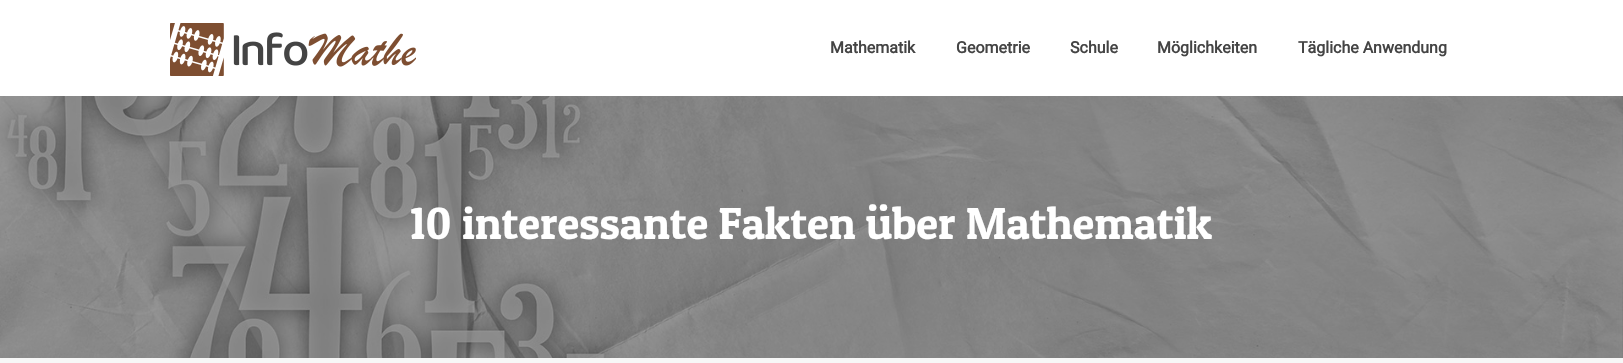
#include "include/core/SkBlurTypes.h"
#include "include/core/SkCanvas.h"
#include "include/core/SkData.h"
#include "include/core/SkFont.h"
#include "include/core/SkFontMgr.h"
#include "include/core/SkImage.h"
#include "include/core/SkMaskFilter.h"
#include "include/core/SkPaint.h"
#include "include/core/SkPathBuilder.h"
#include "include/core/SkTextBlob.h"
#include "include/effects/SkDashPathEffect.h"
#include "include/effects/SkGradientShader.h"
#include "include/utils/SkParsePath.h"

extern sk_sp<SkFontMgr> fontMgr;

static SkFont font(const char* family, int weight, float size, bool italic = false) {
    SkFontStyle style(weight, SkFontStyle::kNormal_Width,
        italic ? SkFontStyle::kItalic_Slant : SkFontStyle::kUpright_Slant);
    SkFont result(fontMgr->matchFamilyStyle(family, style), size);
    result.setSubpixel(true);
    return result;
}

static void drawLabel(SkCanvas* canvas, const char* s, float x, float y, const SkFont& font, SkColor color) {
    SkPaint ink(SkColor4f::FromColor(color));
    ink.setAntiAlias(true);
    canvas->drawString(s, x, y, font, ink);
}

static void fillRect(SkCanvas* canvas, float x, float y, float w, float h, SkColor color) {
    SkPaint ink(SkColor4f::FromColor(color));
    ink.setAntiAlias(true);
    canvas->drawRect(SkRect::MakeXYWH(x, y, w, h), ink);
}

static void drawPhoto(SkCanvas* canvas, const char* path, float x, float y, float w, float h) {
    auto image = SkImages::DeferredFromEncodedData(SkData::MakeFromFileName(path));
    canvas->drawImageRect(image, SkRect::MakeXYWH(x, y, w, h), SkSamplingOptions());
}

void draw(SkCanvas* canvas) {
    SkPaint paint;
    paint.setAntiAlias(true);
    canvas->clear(0xFFF7F7F7);
    fillRect(canvas, 0, 0, 1623, 96, 0xFFFFFFFF);
    drawPhoto(canvas, "assets/img1.png", 170, 23, 246, 53);
    SkFont font1 = font("Roboto", 700, 16);
    drawLabel(canvas, "Mathematik", 830, 53, font1, 0xFF444444);
    drawLabel(canvas, "Geometrie", 956, 53, font1, 0xFF444444);
    drawLabel(canvas, "Schule", 1070, 53, font1, 0xFF444444);
    drawLabel(canvas, "Möglichkeiten", 1157, 53, font1, 0xFF444444);
    drawLabel(canvas, "Tägliche Anwendung", 1298, 53, font1, 0xFF444444);
    drawPhoto(canvas, "assets/img2.png", 0, 96, 1623, 262);
    SkFont font2 = font("Patua One", 400, 45);
    drawLabel(canvas, "10 interessante Fakten über Mathematik", 410, 239, font2, 0xFFFFFFFF);
}
